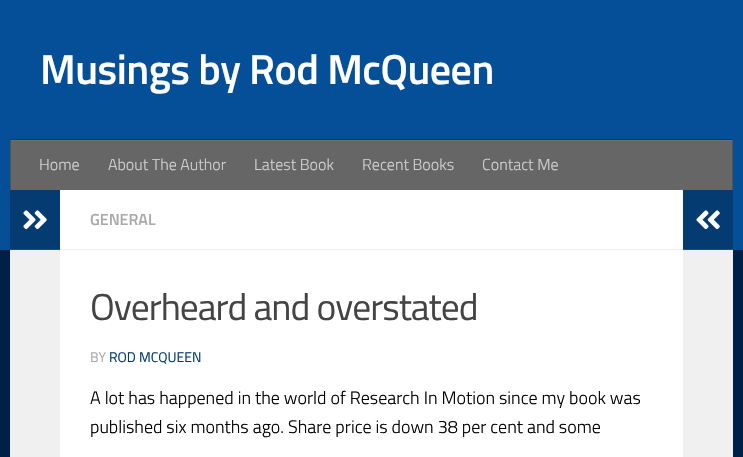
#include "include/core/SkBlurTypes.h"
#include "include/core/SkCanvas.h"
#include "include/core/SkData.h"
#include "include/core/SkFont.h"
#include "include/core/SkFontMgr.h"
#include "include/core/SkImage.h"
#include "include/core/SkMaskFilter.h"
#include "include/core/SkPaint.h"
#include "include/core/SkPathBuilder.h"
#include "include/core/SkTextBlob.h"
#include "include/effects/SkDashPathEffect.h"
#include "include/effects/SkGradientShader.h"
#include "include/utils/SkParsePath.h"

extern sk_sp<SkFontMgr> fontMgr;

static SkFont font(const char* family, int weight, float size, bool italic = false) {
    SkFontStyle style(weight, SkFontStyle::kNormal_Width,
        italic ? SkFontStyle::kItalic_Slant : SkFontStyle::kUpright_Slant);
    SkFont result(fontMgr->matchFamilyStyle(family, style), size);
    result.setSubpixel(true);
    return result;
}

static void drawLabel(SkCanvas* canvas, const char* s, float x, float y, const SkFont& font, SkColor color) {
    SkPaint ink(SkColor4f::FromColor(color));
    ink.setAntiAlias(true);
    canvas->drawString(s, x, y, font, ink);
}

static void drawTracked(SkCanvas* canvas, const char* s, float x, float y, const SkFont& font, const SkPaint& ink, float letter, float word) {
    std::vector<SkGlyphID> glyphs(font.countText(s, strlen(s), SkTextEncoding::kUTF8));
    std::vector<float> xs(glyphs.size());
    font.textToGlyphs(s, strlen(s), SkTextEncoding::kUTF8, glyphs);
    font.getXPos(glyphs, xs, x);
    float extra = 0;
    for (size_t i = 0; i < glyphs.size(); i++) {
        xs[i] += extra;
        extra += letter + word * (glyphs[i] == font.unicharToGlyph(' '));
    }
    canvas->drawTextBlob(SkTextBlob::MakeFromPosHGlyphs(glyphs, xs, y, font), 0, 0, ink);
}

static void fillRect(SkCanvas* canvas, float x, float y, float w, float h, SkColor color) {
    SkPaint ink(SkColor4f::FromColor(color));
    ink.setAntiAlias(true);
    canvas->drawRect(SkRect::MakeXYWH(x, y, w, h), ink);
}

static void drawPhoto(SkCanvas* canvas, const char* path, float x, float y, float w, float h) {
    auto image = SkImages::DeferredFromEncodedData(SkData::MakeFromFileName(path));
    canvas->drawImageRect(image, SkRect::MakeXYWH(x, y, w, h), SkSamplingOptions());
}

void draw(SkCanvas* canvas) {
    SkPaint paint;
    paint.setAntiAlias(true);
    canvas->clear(0xFF002047);
    fillRect(canvas, 0, 0, 743, 250, 0xFF054F98);
    SkFont font1 = font("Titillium", 600, 42);
    paint.setColor(0xFFFFFFFF);
    drawTracked(canvas, "Musings by Rod McQueen", 40, 84, font1, paint, -0.5f, 0);
    fillRect(canvas, 10, 139, 723, 1, 0xFF043F7A);
    fillRect(canvas, 11, 141, 721, 49, 0xFF666666);
    fillRect(canvas, 10, 140, 723, 1, 0xFF6E6E6E);
    fillRect(canvas, 732, 140, 1, 50, 0xFF525252);
    fillRect(canvas, 732, 140, 1, 1, 0xFF5B5B5B);
    fillRect(canvas, 10, 140, 1, 50, 0xFF525252);
    fillRect(canvas, 10, 140, 1, 1, 0xFF5B5B5B);
    SkFont font2 = font("Titillium", 300, 16);
    drawLabel(canvas, "Home", 39, 170, font2, 0xFFD1D1D1);
    drawLabel(canvas, "About The Author", 108, 170, font2, 0xFFD1D1D1);
    drawLabel(canvas, "Latest Book", 254, 170, font2, 0xFFD1D1D1);
    drawLabel(canvas, "Recent Books", 362, 170, font2, 0xFFD1D1D1);
    drawLabel(canvas, "Contact Me", 482, 170, font2, 0xFFD1D1D1);
    fillRect(canvas, 60, 190, 623, 267, 0xFFFFFFFF);
    fillRect(canvas, 10, 250, 50, 207, 0xFFF0F0F0);
    fillRect(canvas, 10, 190, 50, 59, 0xFF043B71);
    fillRect(canvas, 10, 249, 50, 1, 0xFF1D4F7F);
    drawPhoto(canvas, "assets/img1.png", 23, 210, 24, 20);
    fillRect(canvas, 60, 249, 623, 1, 0xFFEEEEEE);
    SkFont font3 = font("Titillium", 600, 16);
    drawLabel(canvas, "GENERAL", 90, 225, font3, 0xFFAAAAAA);
    SkFont font4 = font("Titillium", 400, 37.5f);
    paint.setColor(0xFF444444);
    drawTracked(canvas, "Overheard and overstated", 90, 320, font4, paint, -1, 0);
    SkFont font5 = font("Titillium", 400, 14);
    drawLabel(canvas, "BY", 90, 362, font5, 0xFFAAAAAA);
    drawLabel(canvas, "ROD MCQUEEN", 109, 362, font5, 0xFF043B71);
    SkFont font6 = font("Titillium", 300, 18);
    drawLabel(canvas, "A lot has happened in the world of Research In Motion since my book was", 90, 404, font6, 0xFF000000);
    drawLabel(canvas, "published six months ago. Share price is down 38 per cent and some", 90, 433, font6, 0xFF000000);
    fillRect(canvas, 683, 190, 50, 59, 0xFF043B71);
    fillRect(canvas, 683, 249, 50, 1, 0xFF1D4F7F);
    drawPhoto(canvas, "assets/img2.png", 696, 210, 24, 20);
    fillRect(canvas, 683, 250, 50, 207, 0xFFF0F0F0);
}
